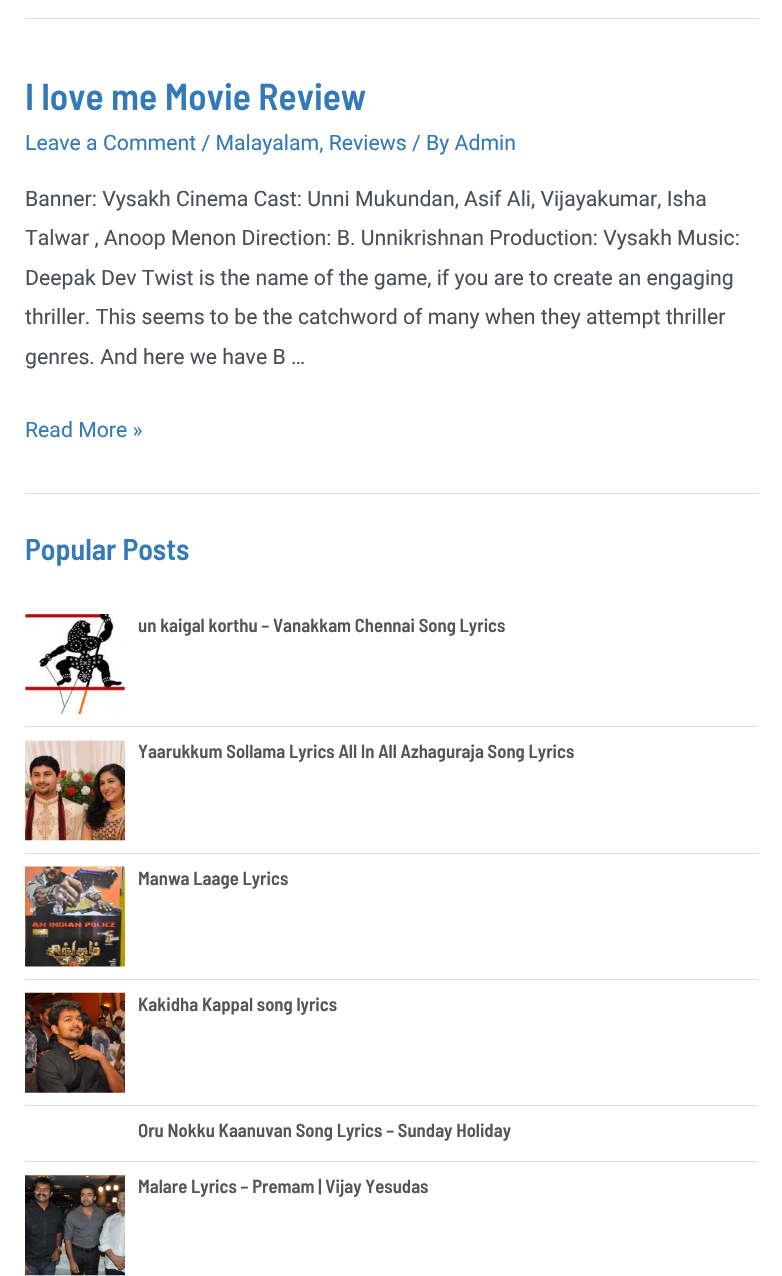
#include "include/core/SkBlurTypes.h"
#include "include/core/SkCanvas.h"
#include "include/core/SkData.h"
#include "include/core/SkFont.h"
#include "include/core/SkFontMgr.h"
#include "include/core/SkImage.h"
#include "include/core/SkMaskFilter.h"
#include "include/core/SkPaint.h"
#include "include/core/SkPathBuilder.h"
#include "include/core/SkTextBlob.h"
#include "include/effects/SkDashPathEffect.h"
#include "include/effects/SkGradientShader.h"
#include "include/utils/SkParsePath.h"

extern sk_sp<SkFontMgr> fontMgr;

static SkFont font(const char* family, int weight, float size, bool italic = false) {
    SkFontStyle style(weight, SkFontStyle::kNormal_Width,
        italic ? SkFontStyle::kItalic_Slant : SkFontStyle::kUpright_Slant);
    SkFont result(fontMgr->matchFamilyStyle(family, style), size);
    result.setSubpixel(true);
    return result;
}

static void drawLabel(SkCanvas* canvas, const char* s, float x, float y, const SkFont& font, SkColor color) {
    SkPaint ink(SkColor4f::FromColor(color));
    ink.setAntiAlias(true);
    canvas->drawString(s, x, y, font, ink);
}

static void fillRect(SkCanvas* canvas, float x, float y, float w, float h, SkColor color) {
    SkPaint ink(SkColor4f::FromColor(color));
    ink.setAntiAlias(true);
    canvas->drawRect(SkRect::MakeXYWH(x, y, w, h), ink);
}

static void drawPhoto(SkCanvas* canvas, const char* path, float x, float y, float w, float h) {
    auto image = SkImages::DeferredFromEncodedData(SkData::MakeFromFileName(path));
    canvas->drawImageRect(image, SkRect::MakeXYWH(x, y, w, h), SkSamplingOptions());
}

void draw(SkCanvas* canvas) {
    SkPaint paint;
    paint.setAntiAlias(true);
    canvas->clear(0xFFFFFFFF);
    fillRect(canvas, 25, 18, 733, 1, 0xFFDDDDDD);
    fillRect(canvas, 25, 493, 733, 1, 0xFFDDDDDD);
    SkFont font1 = font("Barlow Semi Condensed", 600, 37.5f);
    drawLabel(canvas, "I love me Movie Review", 25, 110, font1, 0xFF337AB7);
    SkFont font2 = font("Roboto", 400, 21.25f);
    drawLabel(canvas, "Leave a Comment / Malayalam, Reviews / By Admin", 25, 150, font2, 0xFF337AB7);
    drawLabel(canvas, "Banner: Vysakh Cinema Cast: Unni Mukundan, Asif Ali, Vijayakumar, Isha", 25, 206, font2, 0xFF4B4F58);
    drawLabel(canvas, "Talwar , Anoop Menon Direction: B. Unnikrishnan Production: Vysakh Music:", 25, 245, font2, 0xFF4B4F58);
    drawLabel(canvas, "Deepak Dev Twist is the name of the game, if you are to create an engaging", 25, 285, font2, 0xFF4B4F58);
    drawLabel(canvas, "thriller. This seems to be the catchword of many when they attempt thriller", 25, 324, font2, 0xFF4B4F58);
    drawLabel(canvas, "genres. And here we have B …", 25, 364, font2, 0xFF4B4F58);
    drawLabel(canvas, "Read More »", 25, 437, font2, 0xFF337AB7);
    SkFont font3 = font("Barlow Semi Condensed", 600, 30);
    drawLabel(canvas, "Popular Posts", 25, 560, font3, 0xFF337AB7);
    fillRect(canvas, 25, 726, 733, 1, 0xFFDDDDDD);
    drawPhoto(canvas, "assets/img1.png", 25, 614, 100, 100);
    SkFont font4 = font("Barlow Semi Condensed", 600, 18.75f);
    drawLabel(canvas, "un kaigal korthu – Vanakkam Chennai Song Lyrics", 138, 632, font4, 0xFF555555);
    fillRect(canvas, 25, 853, 733, 1, 0xFFDDDDDD);
    drawPhoto(canvas, "assets/img2.png", 25, 740, 100, 101);
    drawLabel(canvas, "Yaarukkum Sollama Lyrics All In All Azhaguraja Song Lyrics", 138, 758, font4, 0xFF555555);
    fillRect(canvas, 25, 979, 733, 1, 0xFFDDDDDD);
    drawPhoto(canvas, "assets/img3.png", 25, 866, 100, 101);
    drawLabel(canvas, "Manwa Laage Lyrics", 138, 885, font4, 0xFF555555);
    fillRect(canvas, 25, 1105, 733, 1, 0xFFDDDDDD);
    drawPhoto(canvas, "assets/img4.png", 25, 992, 100, 101);
    drawLabel(canvas, "Kakidha Kappal song lyrics", 138, 1011, font4, 0xFF555555);
    fillRect(canvas, 25, 1161, 733, 1, 0xFFDDDDDD);
    drawLabel(canvas, "Oru Nokku Kaanuvan Song Lyrics – Sunday Holiday", 138, 1137, font4, 0xFF555555);
    drawPhoto(canvas, "assets/img5.png", 25, 1175, 100, 101);
    drawLabel(canvas, "Malare Lyrics – Premam | Vijay Yesudas", 138, 1193, font4, 0xFF555555);
}
